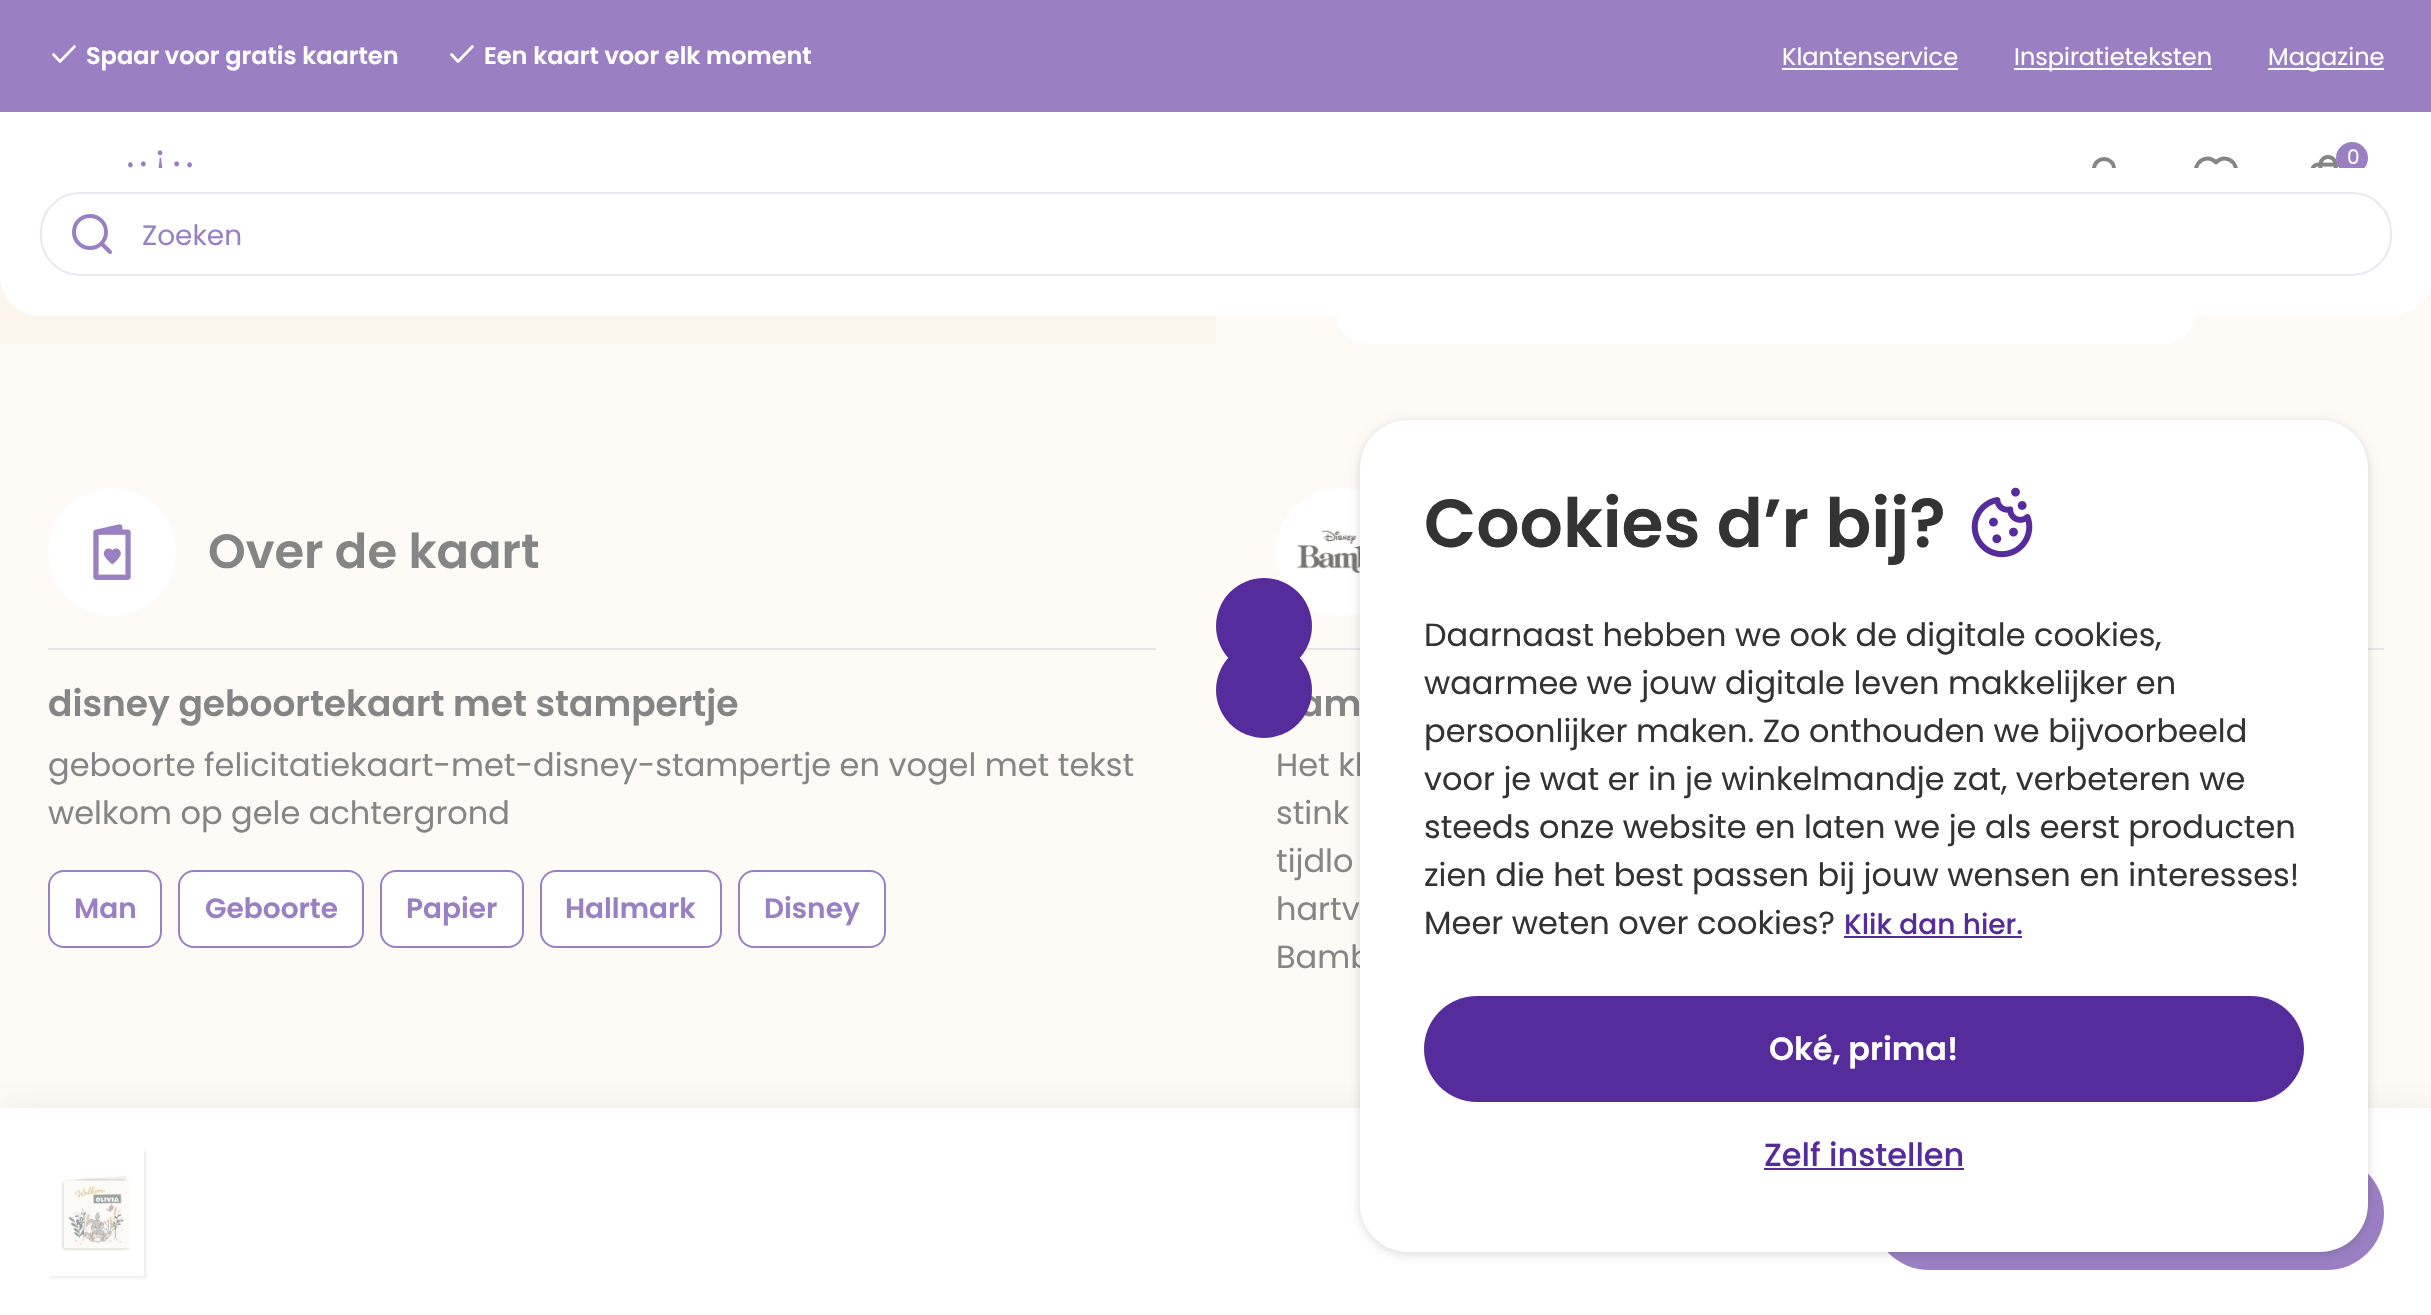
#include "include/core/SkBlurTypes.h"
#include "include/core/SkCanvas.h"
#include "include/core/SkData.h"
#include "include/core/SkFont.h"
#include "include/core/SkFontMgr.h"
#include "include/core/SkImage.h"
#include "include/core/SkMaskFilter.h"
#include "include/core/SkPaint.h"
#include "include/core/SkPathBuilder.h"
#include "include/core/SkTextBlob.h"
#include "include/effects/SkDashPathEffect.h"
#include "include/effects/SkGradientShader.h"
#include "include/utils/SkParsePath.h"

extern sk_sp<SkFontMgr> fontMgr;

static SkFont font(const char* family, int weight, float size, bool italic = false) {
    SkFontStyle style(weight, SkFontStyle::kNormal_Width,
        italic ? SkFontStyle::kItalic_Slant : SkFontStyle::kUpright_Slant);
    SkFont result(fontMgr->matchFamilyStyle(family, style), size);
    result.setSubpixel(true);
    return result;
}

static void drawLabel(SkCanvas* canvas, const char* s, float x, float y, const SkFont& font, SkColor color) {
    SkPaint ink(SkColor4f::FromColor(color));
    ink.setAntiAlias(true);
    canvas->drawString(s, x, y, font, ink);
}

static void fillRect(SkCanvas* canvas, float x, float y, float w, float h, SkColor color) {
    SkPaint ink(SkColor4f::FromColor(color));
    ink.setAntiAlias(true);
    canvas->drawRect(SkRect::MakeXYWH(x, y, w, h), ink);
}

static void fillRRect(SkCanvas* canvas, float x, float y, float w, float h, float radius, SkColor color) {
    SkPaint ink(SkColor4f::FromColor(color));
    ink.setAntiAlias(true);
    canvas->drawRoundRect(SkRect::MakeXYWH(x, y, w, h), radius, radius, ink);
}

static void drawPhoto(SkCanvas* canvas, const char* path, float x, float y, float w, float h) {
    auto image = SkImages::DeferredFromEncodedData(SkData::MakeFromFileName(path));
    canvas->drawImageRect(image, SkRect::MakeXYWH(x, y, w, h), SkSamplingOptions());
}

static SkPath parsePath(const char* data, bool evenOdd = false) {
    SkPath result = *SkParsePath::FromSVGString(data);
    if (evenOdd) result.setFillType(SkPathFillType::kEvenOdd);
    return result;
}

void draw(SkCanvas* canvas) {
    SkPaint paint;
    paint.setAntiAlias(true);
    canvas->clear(0xFFFEFBF7);
    fillRRect(canvas, 1336, -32, 860, 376, 32, 0xFFFFFFFF);
    fillRect(canvas, 0, 0, 2431, 112, 0xFF9A80C3);
    paint.setStroke(true);
    paint.setStrokeWidth(2.7f);
    paint.setStrokeCap(SkPaint::kRound_Cap);
    paint.setStrokeJoin(SkPaint::kRound_Join);
    paint.setColor(0xFFFFFFFF);
    canvas->drawPath(parsePath("M74.5 46.5L60 61.5L53.5 54.5"), paint);
    SkFont font1 = font("Poppins", 600, 24);
    drawLabel(canvas, "Spaar voor gratis kaarten", 86, 64, font1, 0xFFFFFFFF);
    canvas->drawPath(parsePath("M472.5 46.5L458 61.5L451.5 54.5"), paint);
    drawLabel(canvas, "Een kaart voor elk moment", 484, 64, font1, 0xFFFFFFFF);
    SkFont font2 = font("Poppins", 400, 24);
    drawLabel(canvas, "Klantenservice", 1782, 65, font2, 0xFFFFFFFF);
    fillRect(canvas, 1782, 68, 176, 2, 0xFFFFFFFF);
    fillRect(canvas, 2014, 68, 198, 2, 0xFFFFFFFF);
    drawLabel(canvas, "Inspiratieteksten", 2014, 65, font2, 0xFFFFFFFF);
    fillRect(canvas, 2268, 68, 116, 2, 0xFFFFFFFF);
    drawLabel(canvas, "Magazine", 2268, 65, font2, 0xFFFFFFFF);
    fillRect(canvas, 0, 112, 2431, 56, 0xFFFFFFFF);
    drawPhoto(canvas, "assets/img1.png", 128, 150, 64, 18);
    paint.setStrokeWidth(4);
    paint.setColor(0xFF858585);
    canvas->drawPath(parsePath("M2084 195C2095 183.5 2113 183.5 2124 195M2114 169C2114 182.5 2093.5 182 2094 169C2094.5 155.5 2114 156 2114 169Z"), paint);
    canvas->drawPath(parsePath("M2216 162.5C2207 152 2191 163.5 2197.5 175.5C2200 180.5 2205 184.5 2209 188L2216 194L2223 188C2227 184.5 2232 180.5 2234.5 175.5C2241 163.5 2225 152 2216 162.5Z"), paint);
    drawPhoto(canvas, "assets/img2.png", 2310, 155, 30, 13);
    paint.setStroke(false);
    paint.setColor(0xFF9A80C3);
    canvas->drawCircle(2352, 158, 16, paint);
    SkFont font3 = font("Poppins", 400, 20);
    drawLabel(canvas, "0", 2347, 164, font3, 0xFFFFFFFF);
    fillRect(canvas, 0, 276, 1216, 68, 0xFFFBF5EB);
    paint.setColor(0xFFFFFFFF);
    canvas->drawPath(parsePath("M0 168H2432V276C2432 298 2414 316 2392 316H40C18 316 0 298 0 276Z"), paint);
    paint.setStroke(true);
    paint.setStrokeWidth(2);
    paint.setStrokeCap(SkPaint::kButt_Cap);
    paint.setStrokeJoin(SkPaint::kMiter_Join);
    paint.setColor(0xFFEBE6F3);
    canvas->drawRoundRect(SkRect::MakeXYWH(41, 193, 2350, 82), 39, 39, paint);
    paint.setStrokeWidth(4);
    paint.setStrokeCap(SkPaint::kRound_Cap);
    paint.setStrokeJoin(SkPaint::kRound_Join);
    paint.setColor(0xFF9A80C3);
    canvas->drawPath(parsePath("M110 252L101.5 243.5M106 232C106 241 99 248 90 248C81 248 74 241 74 232C74 223 81 216 90 216C99 216 106 223 106 232Z"), paint);
    SkFont font4 = font("Poppins", 400, 28);
    drawLabel(canvas, "Zoeken", 142, 245, font4, 0xFF9A80C3);
    fillRect(canvas, 48, 648, 1108, 2, 0xFFEAE3ED);
    paint.setStroke(false);
    paint.setColor(0xFFFFFFFF);
    canvas->drawCircle(112, 552, 64, paint);
    drawPhoto(canvas, "assets/img3.png", 93, 524, 38, 56);
    SkFont font5 = font("Poppins", 600, 48);
    drawLabel(canvas, "Over de kaart", 208, 568, font5, 0xFF858585);
    SkFont font6 = font("Poppins", 600, 36);
    drawLabel(canvas, "disney geboortekaart met stampertje", 48, 716, font6, 0xFF858585);
    SkFont font7 = font("Poppins", 400, 32);
    drawLabel(canvas, "geboorte felicitatiekaart-met-disney-stampertje en vogel met tekst", 48, 776, font7, 0xFF858585);
    drawLabel(canvas, "welkom op gele achtergrond", 48, 824, font7, 0xFF858585);
    canvas->drawRoundRect(SkRect::MakeXYWH(49, 871, 112, 76), 15, 15, paint);
    paint.setStroke(true);
    paint.setStrokeWidth(2);
    paint.setStrokeCap(SkPaint::kButt_Cap);
    paint.setStrokeJoin(SkPaint::kMiter_Join);
    paint.setColor(0xFF9A80C3);
    canvas->drawRoundRect(SkRect::MakeXYWH(49, 871, 112, 76), 15, 15, paint);
    SkFont font8 = font("Poppins", 600, 28);
    drawLabel(canvas, "Man", 74, 918, font8, 0xFF9A80C3);
    paint.setStroke(false);
    paint.setColor(0xFFFFFFFF);
    canvas->drawRoundRect(SkRect::MakeXYWH(179, 871, 184, 76), 15, 15, paint);
    paint.setStroke(true);
    paint.setColor(0xFF9A80C3);
    canvas->drawRoundRect(SkRect::MakeXYWH(179, 871, 184, 76), 15, 15, paint);
    drawLabel(canvas, "Geboorte", 205, 918, font8, 0xFF9A80C3);
    paint.setStroke(false);
    paint.setColor(0xFFFFFFFF);
    canvas->drawRoundRect(SkRect::MakeXYWH(381, 871, 142, 76), 15, 15, paint);
    paint.setStroke(true);
    paint.setColor(0xFF9A80C3);
    canvas->drawRoundRect(SkRect::MakeXYWH(381, 871, 142, 76), 15, 15, paint);
    drawLabel(canvas, "Papier", 406, 918, font8, 0xFF9A80C3);
    paint.setStroke(false);
    paint.setColor(0xFFFFFFFF);
    canvas->drawRoundRect(SkRect::MakeXYWH(541, 871, 180, 76), 15, 15, paint);
    paint.setStroke(true);
    paint.setColor(0xFF9A80C3);
    canvas->drawRoundRect(SkRect::MakeXYWH(541, 871, 180, 76), 15, 15, paint);
    drawLabel(canvas, "Hallmark", 565, 918, font8, 0xFF9A80C3);
    paint.setStroke(false);
    paint.setColor(0xFFFFFFFF);
    canvas->drawRoundRect(SkRect::MakeXYWH(739, 871, 146, 76), 15, 15, paint);
    paint.setStroke(true);
    paint.setColor(0xFF9A80C3);
    canvas->drawRoundRect(SkRect::MakeXYWH(739, 871, 146, 76), 15, 15, paint);
    drawLabel(canvas, "Disney", 764, 918, font8, 0xFF9A80C3);
    fillRect(canvas, 1305, 648, 1079, 2, 0xFFEAE3ED);
    paint.setStroke(false);
    paint.setColor(0xFFFFFFFF);
    canvas->drawCircle(1340, 552, 64, paint);
    drawPhoto(canvas, "assets/img4.png", 1296, 530, 64, 43);
    drawLabel(canvas, "am", 1299, 716, font6, 0xFF858585);
    drawLabel(canvas, "Het kl", 1276, 776, font7, 0xFF858585);
    drawLabel(canvas, "stink", 1276, 824, font7, 0xFF858585);
    drawLabel(canvas, "tijdlo", 1276, 872, font7, 0xFF858585);
    drawLabel(canvas, "hartv", 1276, 920, font7, 0xFF858585);
    drawLabel(canvas, "Bamb", 1276, 968, font7, 0xFF858585);
    paint.setColor(0x1A666666);
    paint.setMaskFilter(SkMaskFilter::MakeBlur(kNormal_SkBlurStyle, 14));
    canvas->drawRect(SkRect::MakeXYWH(0, 1106, 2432, 208), paint);
    paint.setMaskFilter(nullptr);
    fillRect(canvas, 0, 1108, 2431, 207, 0xFFFFFFFF);
    canvas->save();
    canvas->clipPath(parsePath("M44 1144H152V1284H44ZM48 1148H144V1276H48Z", true), true);
    paint.setColor(0x1F666666);
    paint.setMaskFilter(SkMaskFilter::MakeBlur(kNormal_SkBlurStyle, 1.5f));
    canvas->drawRect(SkRect::MakeXYWH(50, 1150, 96, 128), paint);
    paint.setMaskFilter(nullptr);
    canvas->restore();
    drawPhoto(canvas, "assets/img5.png", 61, 1175, 71, 76);
    fillRRect(canvas, 1872, 1156, 512, 114, 57, 0xFF9A80C3);
    paint.setColor(0xFF562B9B);
    canvas->drawCircle(1264, 626, 48, paint);
    canvas->drawCircle(1264, 690, 48, paint);
    paint.setColor(0x26000000);
    paint.setMaskFilter(SkMaskFilter::MakeBlur(kNormal_SkBlurStyle, 5));
    canvas->drawRoundRect(SkRect::MakeXYWH(1360, 422, 1008, 832), 48, 48, paint);
    paint.setMaskFilter(nullptr);
    fillRRect(canvas, 1360, 420, 1008, 832, 48, 0xFFFFFFFF);
    SkFont font9 = font("Poppins", 600, 68);
    drawLabel(canvas, "Cookies d’r bij?", 1424, 547, font9, 0xFF333333);
    drawPhoto(canvas, "assets/img6.png", 1971, 487, 62, 71);
    drawLabel(canvas, "Daarnaast hebben we ook de digitale cookies,", 1424, 646, font7, 0xFF333333);
    drawLabel(canvas, "waarmee we jouw digitale leven makkelijker en", 1424, 694, font7, 0xFF333333);
    drawLabel(canvas, "persoonlijker maken. Zo onthouden we bijvoorbeeld", 1424, 742, font7, 0xFF333333);
    drawLabel(canvas, "voor je wat er in je winkelmandje zat, verbeteren we", 1424, 790, font7, 0xFF333333);
    drawLabel(canvas, "steeds onze website en laten we je als eerst producten", 1424, 838, font7, 0xFF333333);
    drawLabel(canvas, "zien die het best passen bij jouw wensen en interesses!", 1424, 886, font7, 0xFF333333);
    drawLabel(canvas, "Meer weten over cookies?", 1424, 934, font7, 0xFF333333);
    SkFont font10 = font("Poppins", 500, 28);
    drawLabel(canvas, "Klik dan hier.", 1844, 934, font10, 0xFF562B9B);
    fillRect(canvas, 1844, 936, 178, 2, 0xFF562B9B);
    fillRRect(canvas, 1424, 996, 880, 106, 53, 0xFF562B9B);
    SkFont font11 = font("Poppins", 600, 32);
    drawLabel(canvas, "Oké, prima!", 1769, 1060, font11, 0xFFFFFFFF);
    SkFont font12 = font("Poppins", 500, 32);
    drawLabel(canvas, "Zelf instellen", 1764, 1166, font12, 0xFF562B9B);
    fillRect(canvas, 1764, 1168, 200, 2, 0xFF562B9B);
}
